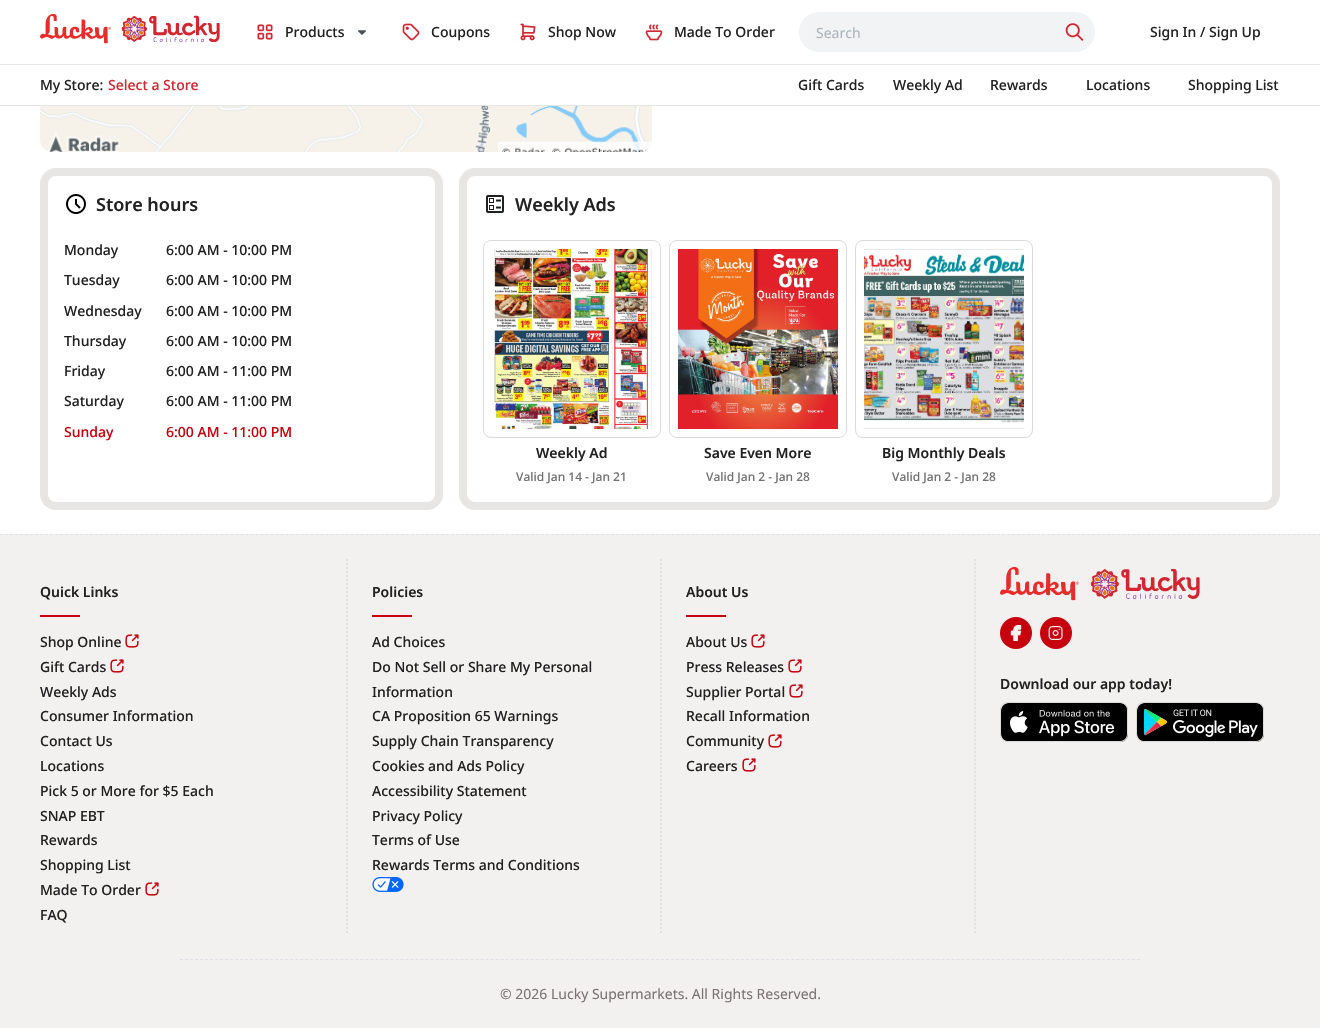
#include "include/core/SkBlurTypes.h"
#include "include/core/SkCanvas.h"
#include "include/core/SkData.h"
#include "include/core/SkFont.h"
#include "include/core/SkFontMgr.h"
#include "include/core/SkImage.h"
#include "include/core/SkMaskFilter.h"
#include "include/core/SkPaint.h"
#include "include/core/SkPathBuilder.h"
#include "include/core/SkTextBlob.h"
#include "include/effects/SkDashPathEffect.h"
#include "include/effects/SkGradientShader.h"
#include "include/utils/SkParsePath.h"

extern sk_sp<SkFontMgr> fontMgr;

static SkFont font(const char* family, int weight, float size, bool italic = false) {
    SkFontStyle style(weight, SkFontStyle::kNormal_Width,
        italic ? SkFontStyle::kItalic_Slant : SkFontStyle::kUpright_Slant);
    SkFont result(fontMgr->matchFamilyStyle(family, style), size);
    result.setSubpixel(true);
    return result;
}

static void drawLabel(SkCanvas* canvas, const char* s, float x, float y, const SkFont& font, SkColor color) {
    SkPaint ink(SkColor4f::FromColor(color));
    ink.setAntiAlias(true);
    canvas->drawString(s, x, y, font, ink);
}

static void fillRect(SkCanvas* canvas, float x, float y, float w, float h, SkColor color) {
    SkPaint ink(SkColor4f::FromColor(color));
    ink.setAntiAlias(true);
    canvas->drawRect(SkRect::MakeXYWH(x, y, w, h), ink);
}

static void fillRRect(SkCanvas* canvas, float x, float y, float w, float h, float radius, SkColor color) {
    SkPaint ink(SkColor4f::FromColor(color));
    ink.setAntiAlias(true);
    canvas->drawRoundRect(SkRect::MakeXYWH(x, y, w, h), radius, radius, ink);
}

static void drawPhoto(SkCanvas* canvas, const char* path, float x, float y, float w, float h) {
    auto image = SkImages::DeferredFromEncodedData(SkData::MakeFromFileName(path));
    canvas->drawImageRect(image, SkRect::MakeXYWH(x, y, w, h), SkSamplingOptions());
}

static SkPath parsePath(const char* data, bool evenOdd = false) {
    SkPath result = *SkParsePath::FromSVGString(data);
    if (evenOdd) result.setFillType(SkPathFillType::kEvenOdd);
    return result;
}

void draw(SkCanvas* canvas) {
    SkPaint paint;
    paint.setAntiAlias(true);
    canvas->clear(0xFFFFFFFF);
    drawPhoto(canvas, "assets/img1.png", 40, 14, 180, 30);
    drawPhoto(canvas, "assets/img2.png", 257, 24, 16, 16);
    SkFont font1 = font("Noto Sans", 500, 14);
    drawLabel(canvas, "Products", 285, 37, font1, 0xFF222222);
    drawPhoto(canvas, "assets/img3.png", 357, 30, 10, 5);
    drawPhoto(canvas, "assets/img4.png", 402, 23, 18, 18);
    drawLabel(canvas, "Coupons", 431, 37, font1, 0xFF222222);
    drawPhoto(canvas, "assets/img5.png", 520, 23, 16, 18);
    drawLabel(canvas, "Shop Now", 548, 37, font1, 0xFF222222);
    drawPhoto(canvas, "assets/img6.png", 645, 24, 18, 17);
    drawLabel(canvas, "Made To Order", 674, 37, font1, 0xFF222222);
    fillRRect(canvas, 799, 12, 296, 40, 20, 0xFFF1F3F5);
    SkFont font2 = font("Noto Sans", 400, 14);
    drawLabel(canvas, "Search", 816, 38, font2, 0xFFADB5BD);
    drawPhoto(canvas, "assets/img7.png", 1065, 23, 19, 18);
    drawLabel(canvas, "Sign In / Sign Up", 1150, 37, font1, 0xFF222222);
    fillRect(canvas, 0, 64, 1320, 1, 0xFFE3E7E2);
    fillRect(canvas, 0, 105, 1320, 1, 0xFFE3E7E2);
    drawLabel(canvas, "My Store:", 40, 90, font1, 0xFF222222);
    drawLabel(canvas, "Select a Store", 108, 90, font1, 0xFFD22630);
    drawLabel(canvas, "Gift Cards", 798, 90, font1, 0xFF222222);
    drawLabel(canvas, "Weekly Ad", 893, 90, font1, 0xFF222222);
    drawLabel(canvas, "Rewards", 990, 90, font1, 0xFF222222);
    drawLabel(canvas, "Locations", 1086, 90, font1, 0xFF222222);
    drawLabel(canvas, "Shopping List", 1188, 90, font1, 0xFF222222);
    drawPhoto(canvas, "assets/img8.png", 40, 106, 612, 46);
    paint.setStroke(true);
    paint.setStrokeWidth(8);
    paint.setColor(0xFFE8E5E5);
    canvas->drawRoundRect(SkRect::MakeXYWH(44, 172, 395, 334), 12, 12, paint);
    drawPhoto(canvas, "assets/img9.png", 66, 194, 20, 20);
    SkFont font3 = font("Noto Sans", 600, 18);
    drawLabel(canvas, "Store hours", 96, 211, font3, 0xFF222222);
    drawLabel(canvas, "Monday", 64, 255, font1, 0xFF222222);
    drawLabel(canvas, "6:00 AM - 10:00 PM", 166, 255, font1, 0xFF222222);
    drawLabel(canvas, "Tuesday", 64, 285, font1, 0xFF222222);
    drawLabel(canvas, "6:00 AM - 10:00 PM", 166, 285, font1, 0xFF222222);
    drawLabel(canvas, "Wednesday", 64, 316, font1, 0xFF222222);
    drawLabel(canvas, "6:00 AM - 10:00 PM", 166, 316, font1, 0xFF222222);
    drawLabel(canvas, "Thursday", 64, 346, font1, 0xFF222222);
    drawLabel(canvas, "6:00 AM - 10:00 PM", 166, 346, font1, 0xFF222222);
    drawLabel(canvas, "Friday", 64, 376, font1, 0xFF222222);
    drawLabel(canvas, "6:00 AM - 11:00 PM", 166, 376, font1, 0xFF222222);
    drawLabel(canvas, "Saturday", 64, 406, font1, 0xFF222222);
    drawLabel(canvas, "6:00 AM - 11:00 PM", 166, 406, font1, 0xFF222222);
    drawLabel(canvas, "Sunday", 64, 437, font1, 0xFFC6000C);
    drawLabel(canvas, "6:00 AM - 11:00 PM", 166, 437, font1, 0xFFC6000C);
    canvas->drawRoundRect(SkRect::MakeXYWH(463, 172, 813, 334), 12, 12, paint);
    drawPhoto(canvas, "assets/img10.png", 486, 195, 18, 18);
    drawLabel(canvas, "Weekly Ads", 515, 211, font3, 0xFF222222);
    paint.setStrokeWidth(1);
    paint.setColor(0xFFDADADA);
    canvas->drawRoundRect(SkRect::MakeXYWH(483.5f, 240.5f, 177, 197), 7.5f, 7.5f, paint);
    drawPhoto(canvas, "assets/img11.png", 494, 249, 158, 180);
    SkFont font4 = font("Noto Sans", 600, 14);
    drawLabel(canvas, "Weekly Ad", 536, 458, font4, 0xFF222222);
    SkFont font5 = font("Noto Sans", 500, 12);
    drawLabel(canvas, "Valid Jan 14 - Jan 21", 516, 481, font5, 0xFF727272);
    canvas->drawRoundRect(SkRect::MakeXYWH(669.5f, 240.5f, 177, 197), 7.5f, 7.5f, paint);
    drawPhoto(canvas, "assets/img12.png", 678, 249, 160, 180);
    drawLabel(canvas, "Save Even More", 704, 458, font4, 0xFF222222);
    drawLabel(canvas, "Valid Jan 2 - Jan 28", 706, 481, font5, 0xFF727272);
    canvas->drawRoundRect(SkRect::MakeXYWH(855.5f, 240.5f, 177, 197), 7.5f, 7.5f, paint);
    drawPhoto(canvas, "assets/img13.png", 864, 249, 160, 180);
    drawLabel(canvas, "Big Monthly Deals", 882, 458, font4, 0xFF222222);
    drawLabel(canvas, "Valid Jan 2 - Jan 28", 892, 481, font5, 0xFF727272);
    fillRect(canvas, 0, 534, 1320, 494, 0xFFF3F0F0);
    paint.setColor(0xFFDEE2E6);
    paint.setPathEffect(SkDashPathEffect::Make({{3, 2.01f}}, 0));
    canvas->drawPath(parsePath("M0 534.5H1320"), paint);
    paint.setPathEffect(nullptr);
    drawLabel(canvas, "Quick Links", 40, 597, font4, 0xFF222222);
    fillRect(canvas, 40, 615, 40, 2, 0xFFC6000C);
    drawLabel(canvas, "Shop Online", 40, 647, font1, 0xFF222222);
    drawPhoto(canvas, "assets/img14.png", 125, 634, 14, 14);
    drawLabel(canvas, "Gift Cards", 40, 672, font1, 0xFF222222);
    drawPhoto(canvas, "assets/img14.png", 110, 659, 14, 14);
    drawLabel(canvas, "Weekly Ads", 40, 697, font1, 0xFF222222);
    drawLabel(canvas, "Consumer Information", 40, 721, font1, 0xFF222222);
    drawLabel(canvas, "Contact Us", 40, 746, font1, 0xFF222222);
    drawLabel(canvas, "Locations", 40, 771, font1, 0xFF222222);
    drawLabel(canvas, "Pick 5 or More for $5 Each", 40, 796, font1, 0xFF222222);
    drawLabel(canvas, "SNAP EBT", 40, 821, font1, 0xFF222222);
    drawLabel(canvas, "Rewards", 40, 845, font1, 0xFF222222);
    drawLabel(canvas, "Shopping List", 40, 870, font1, 0xFF222222);
    drawLabel(canvas, "Made To Order", 40, 895, font1, 0xFF222222);
    drawPhoto(canvas, "assets/img14.png", 145, 882, 14, 14);
    drawLabel(canvas, "FAQ", 40, 920, font1, 0xFF222222);
    paint.setStrokeWidth(2);
    paint.setPathEffect(SkDashPathEffect::Make({{2, 2}}, 0));
    canvas->drawPath(parsePath("M347 559V935"), paint);
    paint.setPathEffect(nullptr);
    drawLabel(canvas, "Policies", 372, 597, font4, 0xFF222222);
    fillRect(canvas, 372, 615, 40, 2, 0xFFC6000C);
    drawLabel(canvas, "Ad Choices", 372, 647, font1, 0xFF222222);
    drawLabel(canvas, "Do Not Sell or Share My Personal", 372, 672, font1, 0xFF222222);
    drawLabel(canvas, "Information", 372, 697, font1, 0xFF222222);
    drawLabel(canvas, "CA Proposition 65 Warnings", 372, 721, font1, 0xFF222222);
    drawLabel(canvas, "Supply Chain Transparency", 372, 746, font1, 0xFF222222);
    drawLabel(canvas, "Cookies and Ads Policy", 372, 771, font1, 0xFF222222);
    drawLabel(canvas, "Accessibility Statement", 372, 796, font1, 0xFF222222);
    drawLabel(canvas, "Privacy Policy", 372, 821, font1, 0xFF222222);
    drawLabel(canvas, "Terms of Use", 372, 845, font1, 0xFF222222);
    drawLabel(canvas, "Rewards Terms and Conditions", 372, 870, font1, 0xFF222222);
    drawPhoto(canvas, "assets/img15.png", 372, 877, 32, 15);
    paint.setPathEffect(SkDashPathEffect::Make({{2, 2}}, 0));
    canvas->drawPath(parsePath("M661 559V935"), paint);
    paint.setPathEffect(nullptr);
    drawLabel(canvas, "About Us", 686, 597, font4, 0xFF222222);
    fillRect(canvas, 686, 615, 40, 2, 0xFFC6000C);
    drawLabel(canvas, "About Us", 686, 647, font1, 0xFF222222);
    drawPhoto(canvas, "assets/img14.png", 751, 634, 14, 14);
    drawLabel(canvas, "Press Releases", 686, 672, font1, 0xFF222222);
    drawPhoto(canvas, "assets/img14.png", 788, 659, 14, 14);
    drawLabel(canvas, "Supplier Portal", 686, 697, font1, 0xFF222222);
    drawPhoto(canvas, "assets/img14.png", 789, 684, 14, 14);
    drawLabel(canvas, "Recall Information", 686, 721, font1, 0xFF222222);
    drawLabel(canvas, "Community", 686, 746, font1, 0xFF222222);
    drawPhoto(canvas, "assets/img14.png", 768, 734, 14, 14);
    drawLabel(canvas, "Careers", 686, 771, font1, 0xFF222222);
    drawPhoto(canvas, "assets/img14.png", 742, 758, 14, 14);
    paint.setPathEffect(SkDashPathEffect::Make({{2, 2}}, 0));
    canvas->drawPath(parsePath("M975 559V935"), paint);
    paint.setPathEffect(nullptr);
    drawPhoto(canvas, "assets/img16.png", 1000, 567, 200, 34);
    paint.setStroke(false);
    paint.setColor(0xFFC6000C);
    canvas->drawCircle(1016, 633, 16, paint);
    drawPhoto(canvas, "assets/img17.png", 1010, 625, 12, 16);
    canvas->drawCircle(1056, 633, 16, paint);
    drawPhoto(canvas, "assets/img18.png", 1048, 626, 15, 14);
    drawLabel(canvas, "Download our app today!", 1000, 689, font4, 0xFF222222);
    drawPhoto(canvas, "assets/img19.png", 1000, 702, 128, 40);
    drawPhoto(canvas, "assets/img20.png", 1136, 702, 128, 40);
    paint.setStroke(true);
    paint.setStrokeWidth(1);
    paint.setColor(0xFFDEE2E6);
    paint.setPathEffect(SkDashPathEffect::Make({{3, 2.01f}}, 0));
    canvas->drawPath(parsePath("M180 959.5H1140"), paint);
    paint.setPathEffect(nullptr);
    drawLabel(canvas, "© 2026 Lucky Supermarkets. All Rights Reserved.", 500, 999, font2, 0xFF7B7474);
}
